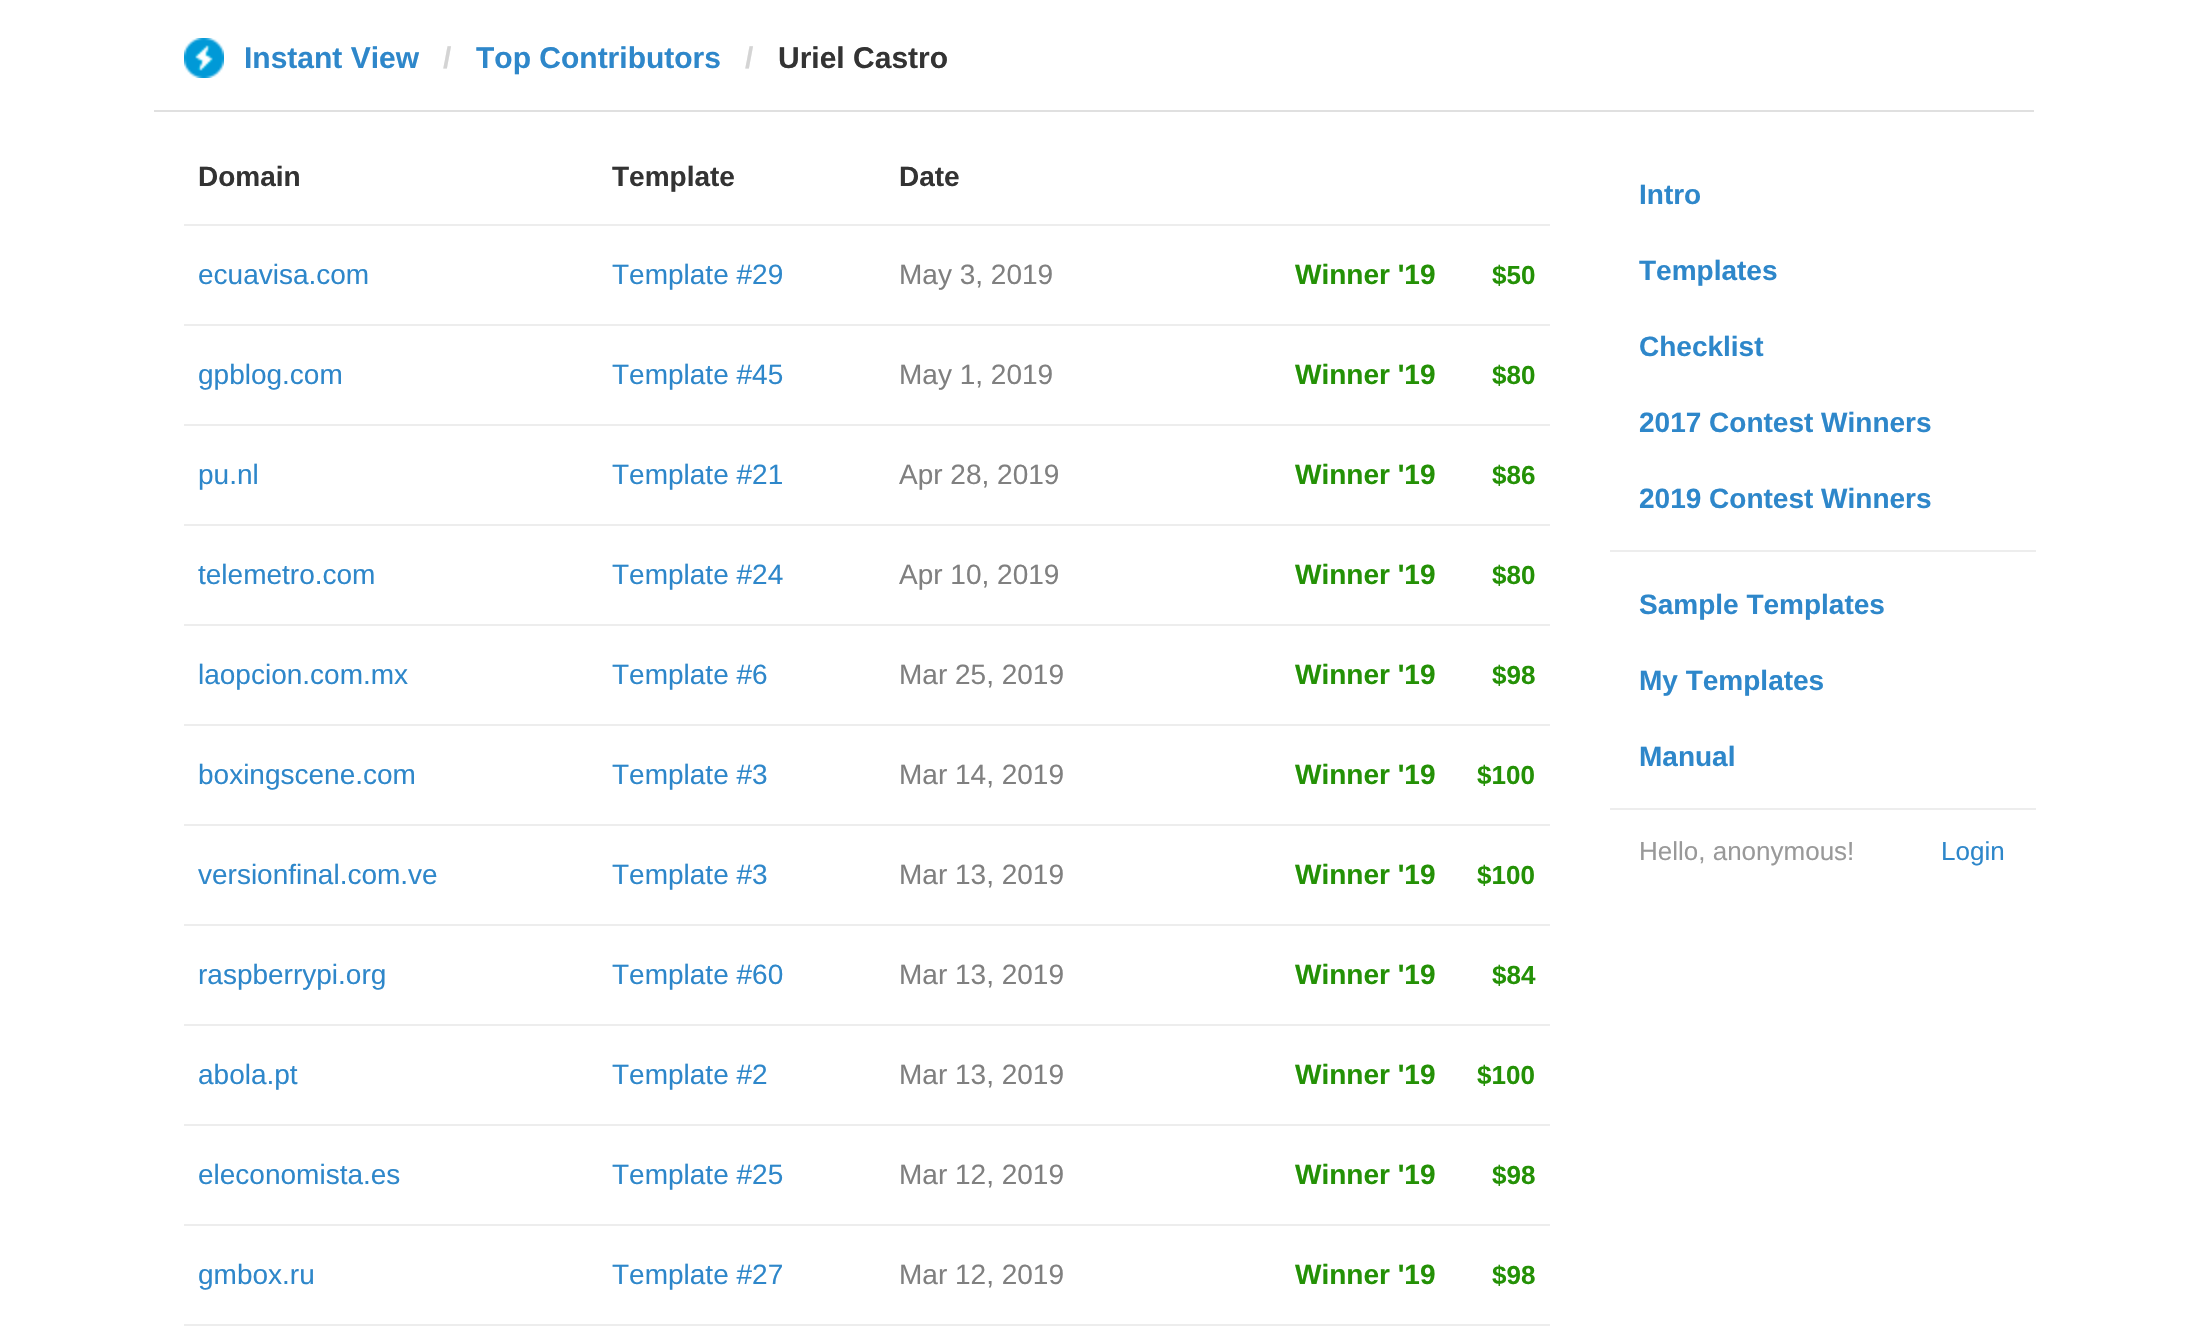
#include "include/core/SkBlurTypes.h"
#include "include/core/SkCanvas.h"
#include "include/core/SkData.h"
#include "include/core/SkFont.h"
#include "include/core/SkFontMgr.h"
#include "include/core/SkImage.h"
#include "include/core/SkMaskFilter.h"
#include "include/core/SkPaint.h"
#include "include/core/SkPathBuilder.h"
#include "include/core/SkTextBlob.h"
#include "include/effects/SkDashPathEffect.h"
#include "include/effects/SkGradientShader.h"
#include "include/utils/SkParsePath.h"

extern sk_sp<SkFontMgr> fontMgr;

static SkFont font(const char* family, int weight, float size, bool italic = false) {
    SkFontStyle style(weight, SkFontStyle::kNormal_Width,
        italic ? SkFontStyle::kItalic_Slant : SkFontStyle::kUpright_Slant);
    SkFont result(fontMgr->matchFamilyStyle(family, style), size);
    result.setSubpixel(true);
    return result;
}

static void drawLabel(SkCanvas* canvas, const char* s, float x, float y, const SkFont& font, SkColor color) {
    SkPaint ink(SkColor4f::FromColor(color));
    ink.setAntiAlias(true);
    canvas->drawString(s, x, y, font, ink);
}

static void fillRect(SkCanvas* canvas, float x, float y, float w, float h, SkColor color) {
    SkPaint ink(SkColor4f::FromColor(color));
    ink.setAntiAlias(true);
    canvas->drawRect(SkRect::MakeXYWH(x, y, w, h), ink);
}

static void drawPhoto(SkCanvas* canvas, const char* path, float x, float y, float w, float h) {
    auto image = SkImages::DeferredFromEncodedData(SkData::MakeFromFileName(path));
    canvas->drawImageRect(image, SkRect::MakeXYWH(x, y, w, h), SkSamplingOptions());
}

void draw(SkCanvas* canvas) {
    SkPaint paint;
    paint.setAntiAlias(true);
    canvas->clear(0xFFFFFFFF);
    fillRect(canvas, 154, 110, 1880, 2, 0xFFE0E0E0);
    drawPhoto(canvas, "assets/img1.png", 184, 38, 40, 40);
    SkFont font1 = font("Liberation Sans", 700, 30);
    drawLabel(canvas, "Instant View", 244, 68, font1, 0xFF2E87CA);
    drawLabel(canvas, "/", 443, 68, font1, 0xFFD4D4D4);
    drawLabel(canvas, "Top Contributors", 476, 68, font1, 0xFF2E87CA);
    drawLabel(canvas, "/", 745, 68, font1, 0xFFD4D4D4);
    drawLabel(canvas, "Uriel Castro", 778, 68, font1, 0xFF333333);
    SkFont font2 = font("Liberation Sans", 700, 28);
    drawLabel(canvas, "Domain", 198, 186, font2, 0xFF333333);
    drawLabel(canvas, "Template", 612, 186, font2, 0xFF333333);
    drawLabel(canvas, "Date", 899, 186, font2, 0xFF333333);
    SkFont font3 = font("Liberation Sans", 400, 28);
    drawLabel(canvas, "ecuavisa.com", 198, 284, font3, 0xFF2E87CA);
    drawLabel(canvas, "Template #29", 612, 284, font3, 0xFF2E87CA);
    drawLabel(canvas, "May 3, 2019", 899, 284, font3, 0xFF808080);
    fillRect(canvas, 184, 224, 1366, 2, 0xFFEDEDED);
    drawLabel(canvas, "Winner '19", 1295, 284, font2, 0xFF249106);
    SkFont font4 = font("Liberation Sans", 700, 26);
    drawLabel(canvas, "$50", 1492, 284, font4, 0xFF249106);
    drawLabel(canvas, "gpblog.com", 198, 384, font3, 0xFF2E87CA);
    drawLabel(canvas, "Template #45", 612, 384, font3, 0xFF2E87CA);
    drawLabel(canvas, "May 1, 2019", 899, 384, font3, 0xFF808080);
    fillRect(canvas, 184, 324, 1366, 2, 0xFFEDEDED);
    drawLabel(canvas, "Winner '19", 1295, 384, font2, 0xFF249106);
    drawLabel(canvas, "$80", 1492, 384, font4, 0xFF249106);
    drawLabel(canvas, "pu.nl", 198, 484, font3, 0xFF2E87CA);
    drawLabel(canvas, "Template #21", 612, 484, font3, 0xFF2E87CA);
    drawLabel(canvas, "Apr 28, 2019", 899, 484, font3, 0xFF808080);
    fillRect(canvas, 184, 424, 1366, 2, 0xFFEDEDED);
    drawLabel(canvas, "Winner '19", 1295, 484, font2, 0xFF249106);
    drawLabel(canvas, "$86", 1492, 484, font4, 0xFF249106);
    drawLabel(canvas, "telemetro.com", 198, 584, font3, 0xFF2E87CA);
    drawLabel(canvas, "Template #24", 612, 584, font3, 0xFF2E87CA);
    drawLabel(canvas, "Apr 10, 2019", 899, 584, font3, 0xFF808080);
    fillRect(canvas, 184, 524, 1366, 2, 0xFFEDEDED);
    drawLabel(canvas, "Winner '19", 1295, 584, font2, 0xFF249106);
    drawLabel(canvas, "$80", 1492, 584, font4, 0xFF249106);
    drawLabel(canvas, "laopcion.com.mx", 198, 684, font3, 0xFF2E87CA);
    drawLabel(canvas, "Template #6", 612, 684, font3, 0xFF2E87CA);
    drawLabel(canvas, "Mar 25, 2019", 899, 684, font3, 0xFF808080);
    fillRect(canvas, 184, 624, 1366, 2, 0xFFEDEDED);
    drawLabel(canvas, "Winner '19", 1295, 684, font2, 0xFF249106);
    drawLabel(canvas, "$98", 1492, 684, font4, 0xFF249106);
    drawLabel(canvas, "boxingscene.com", 198, 784, font3, 0xFF2E87CA);
    drawLabel(canvas, "Template #3", 612, 784, font3, 0xFF2E87CA);
    drawLabel(canvas, "Mar 14, 2019", 899, 784, font3, 0xFF808080);
    fillRect(canvas, 184, 724, 1366, 2, 0xFFEDEDED);
    drawLabel(canvas, "Winner '19", 1295, 784, font2, 0xFF249106);
    drawLabel(canvas, "$100", 1477, 784, font4, 0xFF249106);
    drawLabel(canvas, "versionfinal.com.ve", 198, 884, font3, 0xFF2E87CA);
    drawLabel(canvas, "Template #3", 612, 884, font3, 0xFF2E87CA);
    drawLabel(canvas, "Mar 13, 2019", 899, 884, font3, 0xFF808080);
    fillRect(canvas, 184, 824, 1366, 2, 0xFFEDEDED);
    drawLabel(canvas, "Winner '19", 1295, 884, font2, 0xFF249106);
    drawLabel(canvas, "$100", 1477, 884, font4, 0xFF249106);
    drawLabel(canvas, "raspberrypi.org", 198, 984, font3, 0xFF2E87CA);
    drawLabel(canvas, "Template #60", 612, 984, font3, 0xFF2E87CA);
    drawLabel(canvas, "Mar 13, 2019", 899, 984, font3, 0xFF808080);
    fillRect(canvas, 184, 924, 1366, 2, 0xFFEDEDED);
    drawLabel(canvas, "Winner '19", 1295, 984, font2, 0xFF249106);
    drawLabel(canvas, "$84", 1492, 984, font4, 0xFF249106);
    drawLabel(canvas, "abola.pt", 198, 1084, font3, 0xFF2E87CA);
    drawLabel(canvas, "Template #2", 612, 1084, font3, 0xFF2E87CA);
    drawLabel(canvas, "Mar 13, 2019", 899, 1084, font3, 0xFF808080);
    fillRect(canvas, 184, 1024, 1366, 2, 0xFFEDEDED);
    drawLabel(canvas, "Winner '19", 1295, 1084, font2, 0xFF249106);
    drawLabel(canvas, "$100", 1477, 1084, font4, 0xFF249106);
    drawLabel(canvas, "eleconomista.es", 198, 1184, font3, 0xFF2E87CA);
    drawLabel(canvas, "Template #25", 612, 1184, font3, 0xFF2E87CA);
    drawLabel(canvas, "Mar 12, 2019", 899, 1184, font3, 0xFF808080);
    fillRect(canvas, 184, 1124, 1366, 2, 0xFFEDEDED);
    drawLabel(canvas, "Winner '19", 1295, 1184, font2, 0xFF249106);
    drawLabel(canvas, "$98", 1492, 1184, font4, 0xFF249106);
    drawLabel(canvas, "gmbox.ru", 198, 1284, font3, 0xFF2E87CA);
    drawLabel(canvas, "Template #27", 612, 1284, font3, 0xFF2E87CA);
    drawLabel(canvas, "Mar 12, 2019", 899, 1284, font3, 0xFF808080);
    fillRect(canvas, 184, 1224, 1366, 2, 0xFFEDEDED);
    drawLabel(canvas, "Winner '19", 1295, 1284, font2, 0xFF249106);
    drawLabel(canvas, "$98", 1492, 1284, font4, 0xFF249106);
    fillRect(canvas, 184, 1324, 1366, 2, 0xFFEDEDED);
    drawLabel(canvas, "Intro", 1639, 204, font2, 0xFF2E87CA);
    drawLabel(canvas, "Templates", 1639, 280, font2, 0xFF2E87CA);
    drawLabel(canvas, "Checklist", 1639, 356, font2, 0xFF2E87CA);
    drawLabel(canvas, "2017 Contest Winners", 1639, 432, font2, 0xFF2E87CA);
    drawLabel(canvas, "2019 Contest Winners", 1639, 508, font2, 0xFF2E87CA);
    fillRect(canvas, 1610, 550, 426, 2, 0xFFEDEDED);
    drawLabel(canvas, "Sample Templates", 1639, 614, font2, 0xFF2E87CA);
    drawLabel(canvas, "My Templates", 1639, 690, font2, 0xFF2E87CA);
    drawLabel(canvas, "Manual", 1639, 766, font2, 0xFF2E87CA);
    fillRect(canvas, 1610, 808, 426, 2, 0xFFEDEDED);
    SkFont font5 = font("Liberation Sans", 400, 26);
    drawLabel(canvas, "Hello, anonymous!", 1639, 860, font5, 0xFF999999);
    drawLabel(canvas, "Login", 1941, 860, font5, 0xFF2E87CA);
}
